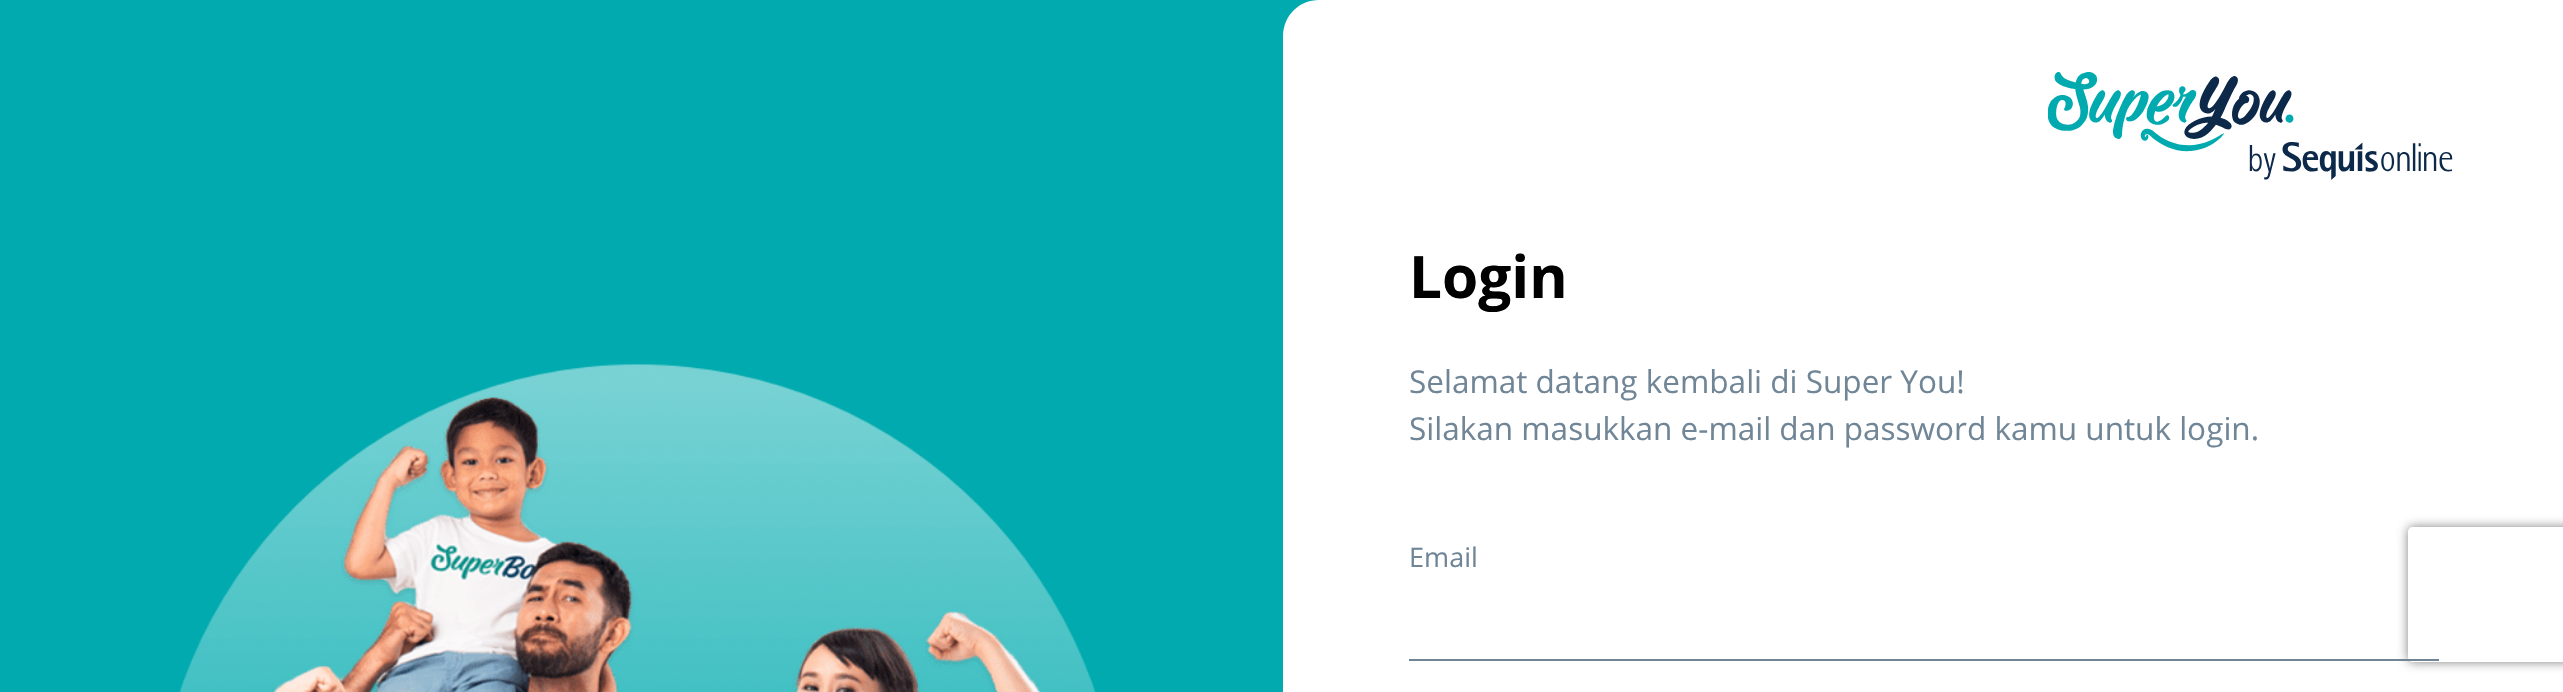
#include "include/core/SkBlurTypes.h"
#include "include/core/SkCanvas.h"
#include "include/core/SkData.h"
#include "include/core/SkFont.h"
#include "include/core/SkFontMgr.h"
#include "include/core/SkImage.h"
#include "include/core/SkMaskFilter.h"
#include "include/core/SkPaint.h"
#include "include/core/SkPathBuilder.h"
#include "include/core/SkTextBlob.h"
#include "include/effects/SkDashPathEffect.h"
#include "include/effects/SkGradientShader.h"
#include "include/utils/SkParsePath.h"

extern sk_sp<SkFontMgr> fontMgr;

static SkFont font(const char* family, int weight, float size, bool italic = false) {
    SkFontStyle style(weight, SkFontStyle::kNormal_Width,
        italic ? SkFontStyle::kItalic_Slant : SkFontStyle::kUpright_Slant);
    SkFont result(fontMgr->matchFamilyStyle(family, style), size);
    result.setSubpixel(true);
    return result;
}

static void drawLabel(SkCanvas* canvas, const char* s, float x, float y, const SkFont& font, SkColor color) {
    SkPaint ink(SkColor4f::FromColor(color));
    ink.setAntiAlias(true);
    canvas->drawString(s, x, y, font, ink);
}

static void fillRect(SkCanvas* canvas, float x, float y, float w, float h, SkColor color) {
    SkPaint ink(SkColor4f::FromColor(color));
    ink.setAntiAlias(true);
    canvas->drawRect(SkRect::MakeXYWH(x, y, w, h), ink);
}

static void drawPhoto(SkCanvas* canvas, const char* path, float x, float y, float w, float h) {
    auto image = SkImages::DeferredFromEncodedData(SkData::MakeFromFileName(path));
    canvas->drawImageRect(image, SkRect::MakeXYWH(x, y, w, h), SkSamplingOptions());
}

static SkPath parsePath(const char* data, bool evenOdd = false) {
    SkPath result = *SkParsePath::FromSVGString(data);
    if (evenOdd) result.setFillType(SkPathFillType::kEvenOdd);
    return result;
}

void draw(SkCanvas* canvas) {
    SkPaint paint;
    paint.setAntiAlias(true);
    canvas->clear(0xFF00AAAE);
    drawPhoto(canvas, "assets/img1.png", 179, 364, 917, 328);
    paint.setColor(0xFFFFFFFF);
    canvas->drawPath(parsePath("M1319 0H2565V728H1319C1299 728 1283 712 1283 692V36C1283 16 1299 0 1319 0Z"), paint);
    drawPhoto(canvas, "assets/img2.png", 2048, 72, 405, 108);
    SkFont font1 = font("Open Sans", 700, 58.5f);
    drawLabel(canvas, "Login", 1409, 298, font1, 0xFF000000);
    SkFont font2 = font("Open Sans", 400, 31.5f);
    drawLabel(canvas, "Selamat datang kembali di Super You!", 1409, 393, font2, 0xFF708697);
    drawLabel(canvas, "Silakan masukkan e-mail dan password kamu untuk login.", 1409, 440, font2, 0xFF708697);
    SkFont font3 = font("Open Sans", 400, 27);
    drawLabel(canvas, "Email", 1409, 567, font3, 0xFF708697);
    fillRect(canvas, 1409, 659, 1030, 2, 0xFF708697);
    canvas->save();
    canvas->clipPath(parsePath("M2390 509H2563V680H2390ZM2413 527H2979C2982 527 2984 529 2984 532V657C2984 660 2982 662 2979 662H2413C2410 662 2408 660 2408 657V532C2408 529 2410 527 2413 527Z", true), true);
    paint.setColor(0xFF808080);
    paint.setMaskFilter(SkMaskFilter::MakeBlur(kNormal_SkBlurStyle, 5.5f));
    canvas->drawRoundRect(SkRect::MakeXYWH(2408, 527, 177, 135), 5, 5, paint);
    paint.setMaskFilter(nullptr);
    canvas->restore();
}
